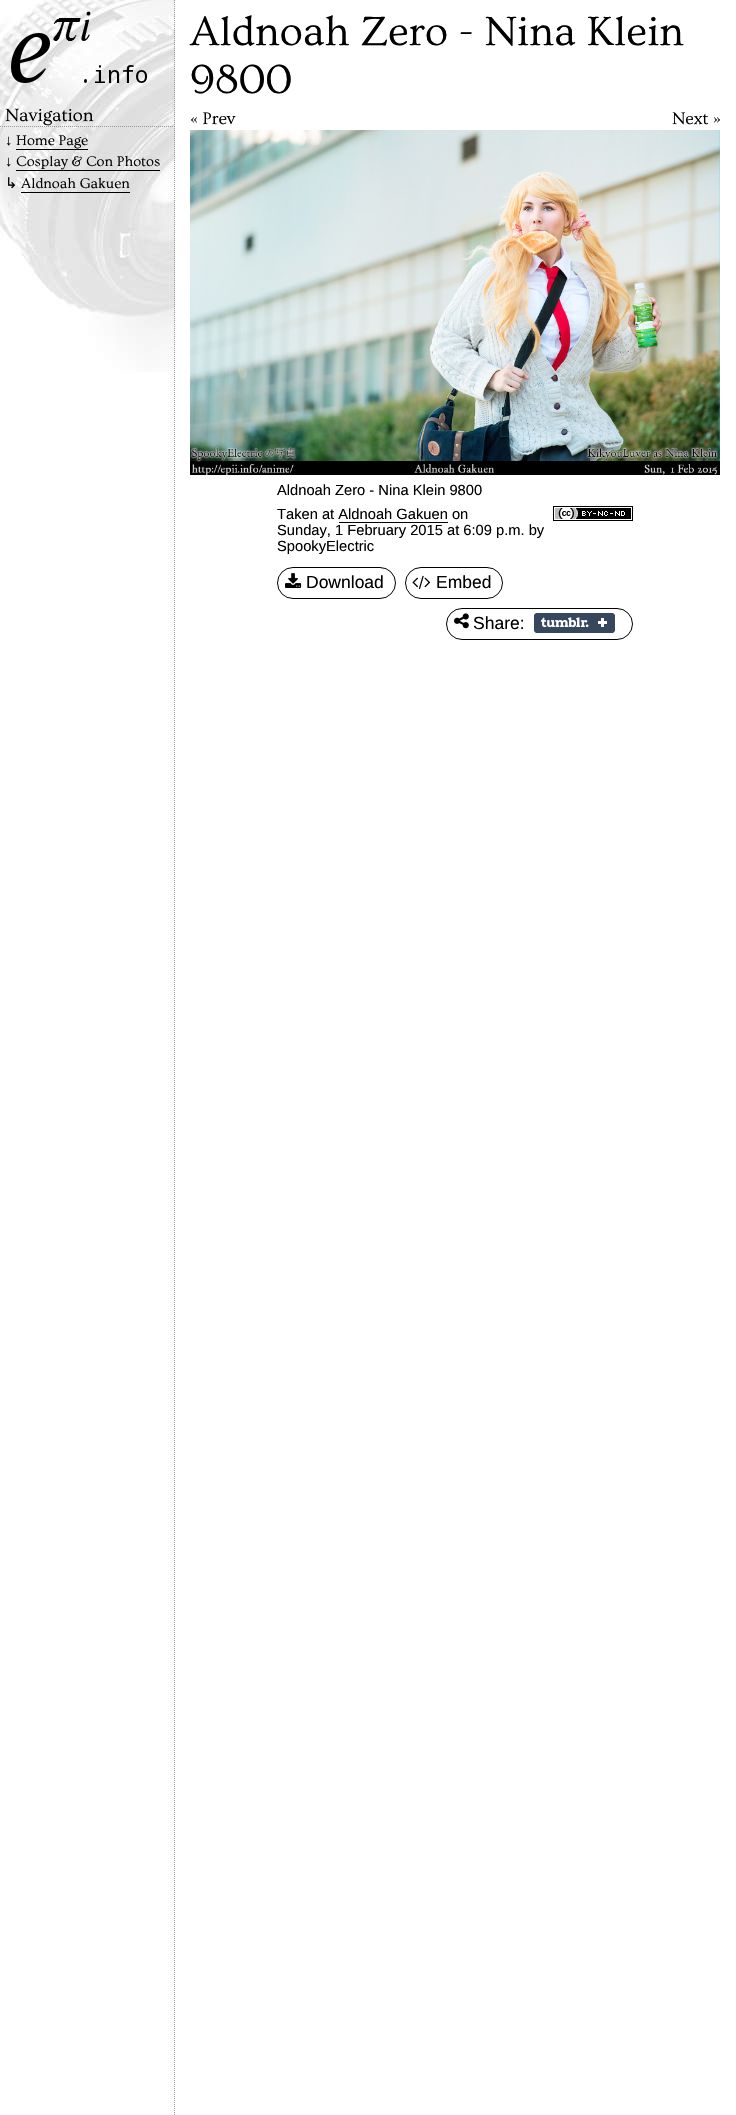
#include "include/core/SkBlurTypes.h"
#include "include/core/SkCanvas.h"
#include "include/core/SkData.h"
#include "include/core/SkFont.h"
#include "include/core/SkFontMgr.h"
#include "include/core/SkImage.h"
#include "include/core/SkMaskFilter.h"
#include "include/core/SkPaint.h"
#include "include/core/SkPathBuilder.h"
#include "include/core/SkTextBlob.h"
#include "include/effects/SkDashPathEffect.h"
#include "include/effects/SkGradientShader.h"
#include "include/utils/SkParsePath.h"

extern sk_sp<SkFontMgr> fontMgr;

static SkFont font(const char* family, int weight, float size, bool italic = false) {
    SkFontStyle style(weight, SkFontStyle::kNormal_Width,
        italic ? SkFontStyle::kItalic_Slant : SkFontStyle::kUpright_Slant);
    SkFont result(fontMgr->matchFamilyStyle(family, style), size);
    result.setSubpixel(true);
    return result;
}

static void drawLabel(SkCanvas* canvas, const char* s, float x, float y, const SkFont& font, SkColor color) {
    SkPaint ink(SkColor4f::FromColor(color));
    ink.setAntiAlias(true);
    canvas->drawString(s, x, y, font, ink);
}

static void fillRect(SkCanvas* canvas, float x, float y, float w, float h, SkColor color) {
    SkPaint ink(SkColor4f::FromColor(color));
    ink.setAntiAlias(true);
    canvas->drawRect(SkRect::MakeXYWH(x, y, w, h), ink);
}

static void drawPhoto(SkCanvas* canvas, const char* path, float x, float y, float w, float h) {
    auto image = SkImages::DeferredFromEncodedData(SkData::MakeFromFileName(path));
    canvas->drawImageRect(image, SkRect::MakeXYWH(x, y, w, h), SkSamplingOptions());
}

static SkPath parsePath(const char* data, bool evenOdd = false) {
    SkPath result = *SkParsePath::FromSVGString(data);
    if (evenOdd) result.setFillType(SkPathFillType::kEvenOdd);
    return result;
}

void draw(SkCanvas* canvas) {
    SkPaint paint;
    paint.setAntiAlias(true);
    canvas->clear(0xFFFFFFFF);
    drawPhoto(canvas, "assets/img1.png", 0, 0, 175, 372);
    paint.setStroke(true);
    paint.setStrokeWidth(1);
    paint.setColor(0xFF999999);
    paint.setPathEffect(SkDashPathEffect::Make({{1, 1}}, 0));
    canvas->drawPath(parsePath("M174.5 0V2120"), paint);
    paint.setPathEffect(nullptr);
    drawPhoto(canvas, "assets/img2.png", 11, 11, 137, 72);
    paint.setPathEffect(SkDashPathEffect::Make({{1, 1}}, 0));
    canvas->drawPath(parsePath("M0 126.5H174"), paint);
    paint.setPathEffect(nullptr);
    SkFont font1 = font("Ovo", 400, 18.5f);
    drawLabel(canvas, "Navigation", 5, 121, font1, 0xFF000000);
    SkFont font2 = font("Liberation Serif", 400, 14.7f);
    drawLabel(canvas, "↓", 5, 145, font2, 0xFF000000);
    SkFont font3 = font("Ovo", 400, 14.7f);
    drawLabel(canvas, "Home Page", 16, 145, font3, 0xFF000000);
    fillRect(canvas, 16, 149, 72, 1, 0xFF000000);
    drawLabel(canvas, "↓", 5, 166, font2, 0xFF000000);
    drawLabel(canvas, "Cosplay & Con Photos", 16, 166, font3, 0xFF000000);
    fillRect(canvas, 16, 170, 144, 1, 0xFF000000);
    SkFont font4 = font("DejaVu Sans", 400, 14.7f);
    drawLabel(canvas, "↳", 5, 188, font4, 0xFF000000);
    drawLabel(canvas, "Aldnoah Gakuen", 21, 188, font3, 0xFF000000);
    fillRect(canvas, 21, 192, 109, 1, 0xFF000000);
    SkFont font5 = font("Ovo", 400, 42.75f);
    drawLabel(canvas, "Aldnoah Zero - Nina Klein", 190, 45, font5, 0xFF000000);
    drawLabel(canvas, "9800", 190, 93, font5, 0xFF000000);
    SkFont font6 = font("Ovo", 400, 17.5f);
    drawLabel(canvas, "« Prev", 190, 124, font6, 0xFF000000);
    drawLabel(canvas, "Next »", 672, 124, font6, 0xFF000000);
    drawPhoto(canvas, "assets/img3.png", 190, 130, 530, 345);
    SkFont font7 = font("Liberation Sans", 400, 14.7f);
    drawLabel(canvas, "Aldnoah Zero - Nina Klein 9800", 277, 495, font7, 0xFF000000);
    drawLabel(canvas, "Taken at Aldnoah Gakuen on", 277, 519, font7, 0xFF000000);
    drawPhoto(canvas, "assets/img4.png", 553, 506, 80, 15);
    fillRect(canvas, 339, 522, 109, 1, 0xFF000000);
    drawLabel(canvas, "Sunday, 1 February 2015 at 6:09 p.m. by", 277, 535, font7, 0xFF000000);
    drawLabel(canvas, "SpookyElectric", 277, 551, font7, 0xFF000000);
    paint.setColor(0xFF000000);
    canvas->drawRoundRect(SkRect::MakeXYWH(277.5f, 567.5f, 118, 31), 15.5f, 15.5f, paint);
    drawPhoto(canvas, "assets/img5.png", 285, 573, 17, 15);
    SkFont font8 = font("Liberation Sans", 400, 17.5f);
    drawLabel(canvas, "Download", 306, 588, font8, 0xFF000000);
    canvas->drawRoundRect(SkRect::MakeXYWH(405.5f, 567.5f, 97, 31), 15.5f, 15.5f, paint);
    drawPhoto(canvas, "assets/img6.png", 412, 575, 19, 14);
    drawLabel(canvas, "Embed", 436, 588, font8, 0xFF000000);
    canvas->drawRoundRect(SkRect::MakeXYWH(446.5f, 608.5f, 186, 31), 15.5f, 15.5f, paint);
    drawPhoto(canvas, "assets/img7.png", 454, 613, 15, 16);
    drawLabel(canvas, "Share:", 473, 629, font8, 0xFF000000);
    drawPhoto(canvas, "assets/img8.png", 534, 613, 81, 20);
}
